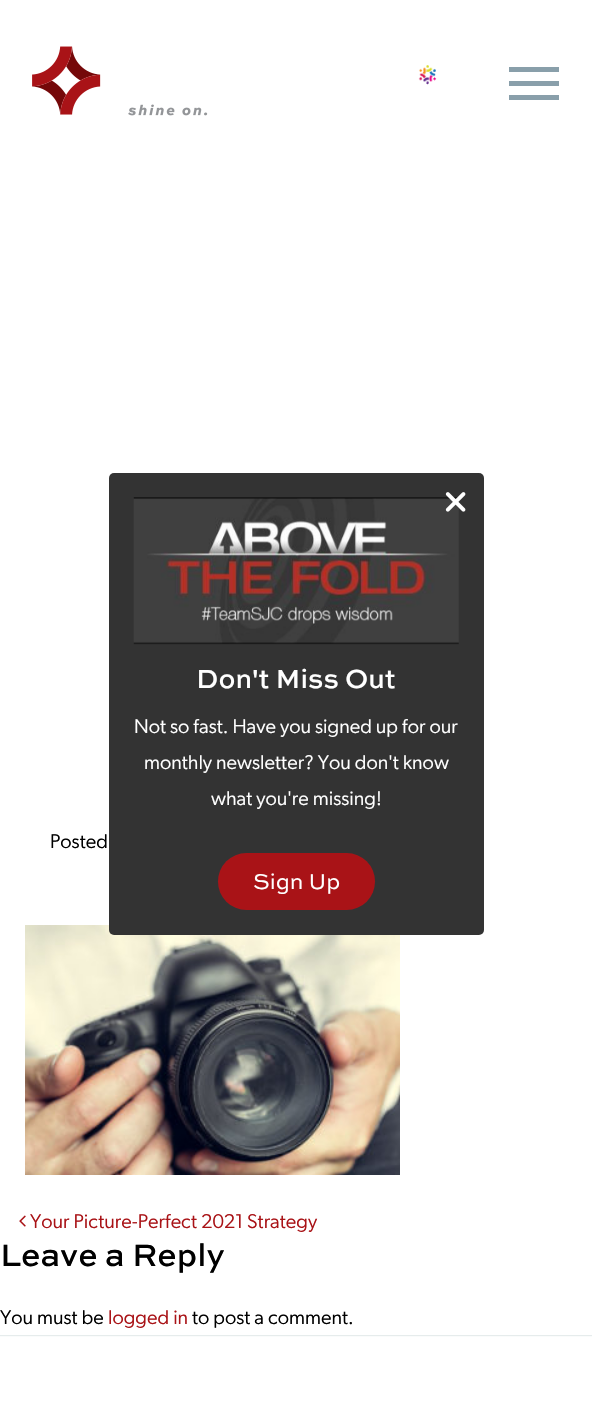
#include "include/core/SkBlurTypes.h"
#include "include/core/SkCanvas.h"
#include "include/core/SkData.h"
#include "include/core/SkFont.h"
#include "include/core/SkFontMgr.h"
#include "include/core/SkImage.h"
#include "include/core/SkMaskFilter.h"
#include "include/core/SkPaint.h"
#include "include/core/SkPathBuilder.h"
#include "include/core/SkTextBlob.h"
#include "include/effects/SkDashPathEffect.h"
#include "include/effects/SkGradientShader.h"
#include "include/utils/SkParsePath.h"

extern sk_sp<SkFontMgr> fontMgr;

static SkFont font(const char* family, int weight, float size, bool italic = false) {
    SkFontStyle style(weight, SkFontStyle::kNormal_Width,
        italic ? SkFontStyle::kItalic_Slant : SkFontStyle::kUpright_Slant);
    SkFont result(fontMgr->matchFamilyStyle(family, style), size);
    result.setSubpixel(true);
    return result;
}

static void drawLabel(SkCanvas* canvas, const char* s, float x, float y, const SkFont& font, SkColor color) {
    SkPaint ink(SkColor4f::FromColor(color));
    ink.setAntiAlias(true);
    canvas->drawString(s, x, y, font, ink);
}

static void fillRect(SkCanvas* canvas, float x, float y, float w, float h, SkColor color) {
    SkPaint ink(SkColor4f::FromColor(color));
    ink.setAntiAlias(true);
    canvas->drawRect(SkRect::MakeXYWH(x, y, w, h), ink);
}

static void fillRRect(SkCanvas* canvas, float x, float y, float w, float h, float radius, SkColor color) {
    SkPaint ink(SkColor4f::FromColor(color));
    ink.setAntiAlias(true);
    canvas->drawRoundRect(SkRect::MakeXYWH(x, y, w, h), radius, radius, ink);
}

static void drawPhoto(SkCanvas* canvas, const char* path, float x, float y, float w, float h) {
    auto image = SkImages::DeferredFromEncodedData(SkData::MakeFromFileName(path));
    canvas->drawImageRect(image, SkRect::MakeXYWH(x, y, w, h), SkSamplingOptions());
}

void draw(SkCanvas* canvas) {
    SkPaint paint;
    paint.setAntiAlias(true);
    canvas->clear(0xFFFFFFFF);
    canvas->save();
    canvas->clipRect(SkRect::MakeXYWH(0, 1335, 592, 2));
    paint.setColor(0xFFE6ECEC);
    paint.setMaskFilter(SkMaskFilter::MakeBlur(kNormal_SkBlurStyle, 0.5f));
    canvas->drawRect(SkRect::MakeXYWH(0, 826, 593, 510), paint);
    paint.setMaskFilter(nullptr);
    canvas->restore();
    drawPhoto(canvas, "assets/img5.png", 25, 925, 375, 250);
    fillRRect(canvas, 109, 473, 375, 462, 5, 0xFF333333);
    drawPhoto(canvas, "assets/img2.png", 133, 497, 326, 148);
    drawPhoto(canvas, "assets/img1.png", 445, 492, 21, 20);
    SkFont font1 = font("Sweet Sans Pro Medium", 500, 27.5f);
    drawLabel(canvas, "Don't Miss Out", 196, 688, font1, 0xFFFFFFFF);
    SkFont font2 = font("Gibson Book", 400, 20);
    drawLabel(canvas, "Not so fast. Have you signed up for our", 134, 733, font2, 0xFFFFFFFF);
    drawLabel(canvas, "monthly newsletter? You don't know", 144, 769, font2, 0xFFFFFFFF);
    drawLabel(canvas, "what you're missing!", 211, 805, font2, 0xFFFFFFFF);
    fillRRect(canvas, 218, 853, 157, 57, 28.5f, 0xFFA91317);
    SkFont font3 = font("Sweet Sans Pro", 400, 22.5f);
    drawLabel(canvas, "Sign Up", 253, 889, font3, 0xFFFFFFFF);
    drawPhoto(canvas, "assets/img3.png", 32, 46, 176, 70);
    drawPhoto(canvas, "assets/img4.png", 418, 65, 19, 20);
    fillRect(canvas, 509, 67, 50, 5, 0xFF899FAA);
    fillRect(canvas, 509, 81, 50, 5, 0xFF899FAA);
    fillRect(canvas, 509, 95, 50, 5, 0xFF899FAA);
    drawLabel(canvas, "Posted", 50, 848, font2, 0xFF000000);
    drawPhoto(canvas, "assets/img6.png", 19, 1215, 7, 12);
    drawLabel(canvas, "Your Picture-Perfect 2021 Strategy", 30, 1228, font2, 0xFFA91317);
    SkFont font4 = font("Sweet Sans Pro Medium", 500, 32.5f);
    drawLabel(canvas, "Leave a Reply", 0, 1266, font4, 0xFF000000);
    drawLabel(canvas, "You must be", 0, 1324, font2, 0xFF000000);
    drawLabel(canvas, "logged in", 108, 1324, font2, 0xFFA91317);
    drawLabel(canvas, "to post a comment.", 192, 1324, font2, 0xFF000000);
}
